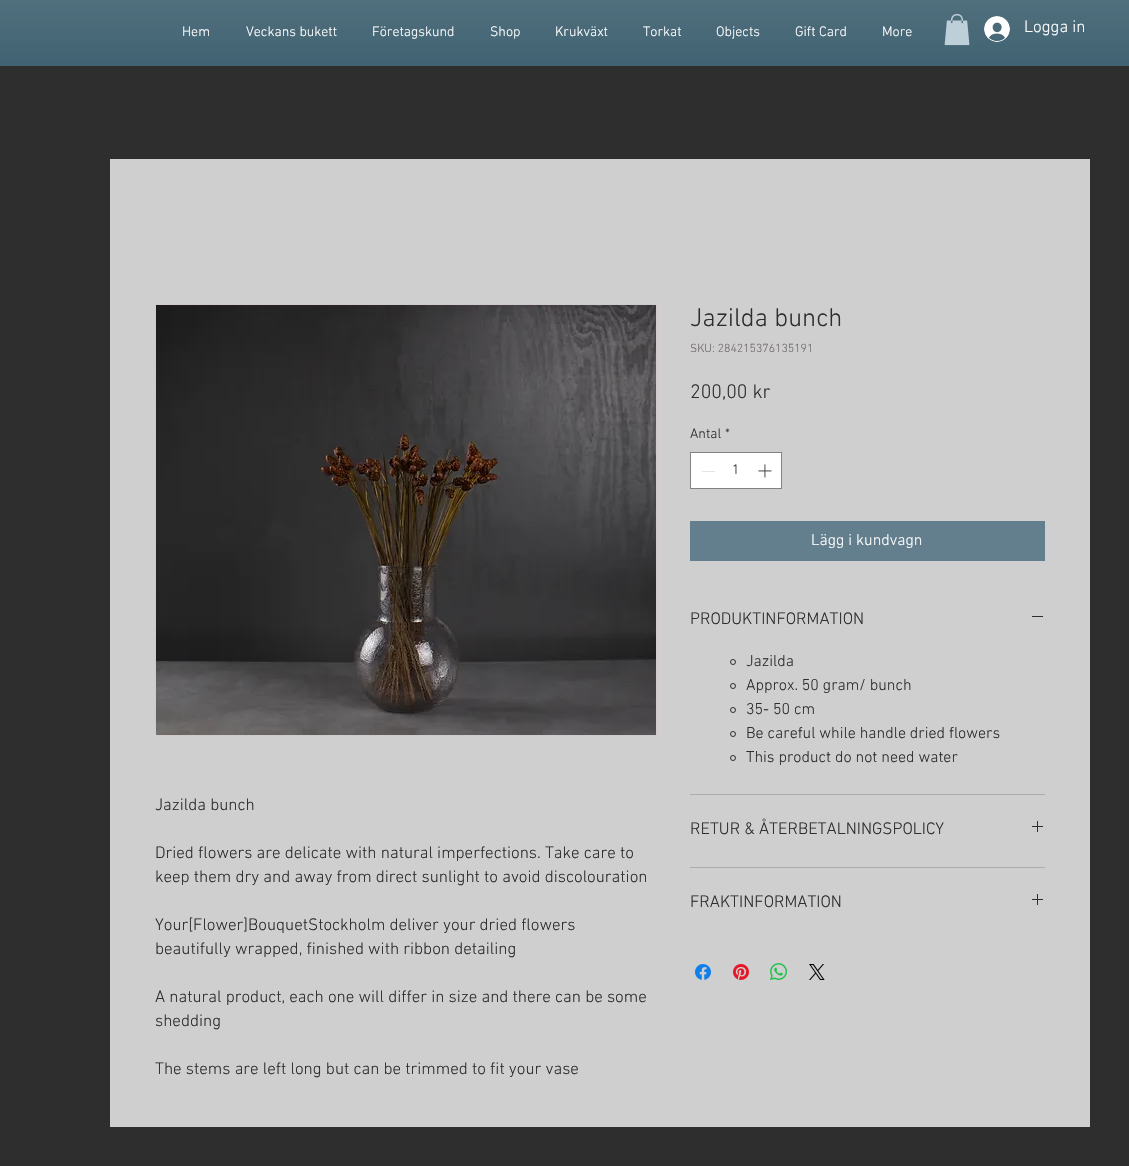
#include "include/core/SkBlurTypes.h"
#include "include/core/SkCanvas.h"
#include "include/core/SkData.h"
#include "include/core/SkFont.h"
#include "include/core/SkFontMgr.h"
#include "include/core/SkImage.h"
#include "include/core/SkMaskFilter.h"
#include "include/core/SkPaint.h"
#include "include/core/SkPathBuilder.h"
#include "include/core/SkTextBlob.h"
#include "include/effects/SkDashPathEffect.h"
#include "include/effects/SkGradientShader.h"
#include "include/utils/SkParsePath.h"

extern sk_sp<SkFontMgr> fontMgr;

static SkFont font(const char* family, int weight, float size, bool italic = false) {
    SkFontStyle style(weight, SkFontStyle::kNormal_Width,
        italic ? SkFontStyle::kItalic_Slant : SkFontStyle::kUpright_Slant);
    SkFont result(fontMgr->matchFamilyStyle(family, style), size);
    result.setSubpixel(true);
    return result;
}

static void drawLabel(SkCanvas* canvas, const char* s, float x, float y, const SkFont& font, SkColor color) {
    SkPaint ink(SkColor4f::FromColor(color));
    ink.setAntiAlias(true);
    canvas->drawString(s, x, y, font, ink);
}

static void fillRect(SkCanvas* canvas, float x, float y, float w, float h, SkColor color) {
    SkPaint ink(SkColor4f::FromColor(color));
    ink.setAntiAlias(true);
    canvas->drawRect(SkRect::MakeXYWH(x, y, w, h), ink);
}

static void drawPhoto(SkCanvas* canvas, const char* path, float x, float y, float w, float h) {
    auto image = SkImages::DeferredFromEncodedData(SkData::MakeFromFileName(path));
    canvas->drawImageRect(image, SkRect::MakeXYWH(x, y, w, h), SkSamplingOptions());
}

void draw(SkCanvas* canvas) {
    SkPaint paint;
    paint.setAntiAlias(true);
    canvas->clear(0xFF2F2E2E);
    fillRect(canvas, 0, 0, 1129, 66, 0xFF133D50);
    drawPhoto(canvas, "assets/img1.png", 0, 0, 1129, 66);
    SkFont font1 = font("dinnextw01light", 300, 14);
    drawLabel(canvas, "Hem", 182, 36, font1, 0xFFFFFFFF);
    drawLabel(canvas, "Veckans bukett", 246, 36, font1, 0xFFFFFFFF);
    drawLabel(canvas, "Företagskund", 372, 36, font1, 0xFFFFFFFF);
    drawLabel(canvas, "Shop", 490, 36, font1, 0xFFFFFFFF);
    drawLabel(canvas, "Krukväxt", 555, 36, font1, 0xFFFFFFFF);
    drawLabel(canvas, "Torkat", 643, 36, font1, 0xFFFFFFFF);
    drawLabel(canvas, "Objects", 716, 36, font1, 0xFFFFFFFF);
    drawLabel(canvas, "Gift Card", 795, 36, font1, 0xFFFFFFFF);
    drawLabel(canvas, "More", 882, 36, font1, 0xFFFFFFFF);
    drawPhoto(canvas, "assets/img2.png", 944, 14, 26, 32);
    drawPhoto(canvas, "assets/img3.png", 984, 16, 26, 26);
    SkFont font2 = font("dinnextw01light", 300, 17);
    drawLabel(canvas, "Logga in", 1024, 32, font2, 0xFFFFFFFF);
    fillRect(canvas, 110, 159, 980, 968, 0xFFCFCFCF);
    SkFont font3 = font("dinnextw01light", 300, 26);
    drawLabel(canvas, "Jazilda bunch", 690, 326, font3, 0xFF2F2E2E);
    SkFont font4 = font("dinnextw01light", 300, 12);
    drawLabel(canvas, "SKU: 284215376135191", 690, 352, font4, 0xFF6E6968);
    SkFont font5 = font("dinnextw01light", 300, 20);
    drawLabel(canvas, "200,00 kr", 690, 398, font5, 0xFF2F2E2E);
    drawLabel(canvas, "Antal", 690, 438, font1, 0xFF2F2E2E);
    drawLabel(canvas, "*", 725, 438, font1, 0xFF2F2E2E);
    paint.setColor(0xFFFFFFFF);
    canvas->drawRect(SkRect::MakeXYWH(690.5f, 452.5f, 91, 36), paint);
    paint.setStroke(true);
    paint.setStrokeWidth(1);
    paint.setColor(0xFF828282);
    canvas->drawRect(SkRect::MakeXYWH(690.5f, 452.5f, 91, 36), paint);
    fillRect(canvas, 702, 471, 13, 1, 0xFFE3E3E3);
    drawLabel(canvas, "1", 732, 474, font1, 0xFF2F2E2E);
    drawPhoto(canvas, "assets/img4.png", 758, 464, 14, 14);
    fillRect(canvas, 690, 521, 355, 40, 0xFF637E8C);
    SkFont font6 = font("dinnextw01light", 300, 16);
    drawLabel(canvas, "Lägg i kundvagn", 811, 545, font6, 0xFFFFFFFF);
    fillRect(canvas, 690, 794, 355, 1, 0xFFB0AAA9);
    drawLabel(canvas, "PRODUKTINFORMATION", 690, 624, font2, 0xFF2F2E2E);
    fillRect(canvas, 1032, 616, 11, 1, 0xFF2F2E2E);
    paint.setColor(0xFF2F2E2E);
    canvas->drawCircle(733, 662, 2.5f, paint);
    drawLabel(canvas, "Jazilda", 746, 666, font6, 0xFF2F2E2E);
    canvas->drawCircle(733, 686, 2.5f, paint);
    drawLabel(canvas, "Approx. 50 gram/ bunch", 746, 690, font6, 0xFF2F2E2E);
    canvas->drawCircle(733, 710, 2.5f, paint);
    drawLabel(canvas, "35- 50 cm", 746, 714, font6, 0xFF2F2E2E);
    canvas->drawCircle(733, 734, 2.5f, paint);
    drawLabel(canvas, "Be careful while handle dried flowers", 746, 738, font6, 0xFF2F2E2E);
    canvas->drawCircle(733, 758, 2.5f, paint);
    drawLabel(canvas, "This product do not need water", 746, 762, font6, 0xFF2F2E2E);
    fillRect(canvas, 690, 867, 355, 1, 0xFFB0AAA9);
    drawLabel(canvas, "RETUR & ÅTERBETALNINGSPOLICY", 690, 834, font2, 0xFF2F2E2E);
    drawPhoto(canvas, "assets/img5.png", 1032, 821, 11, 11);
    drawLabel(canvas, "FRAKTINFORMATION", 690, 907, font2, 0xFF2F2E2E);
    drawPhoto(canvas, "assets/img5.png", 1032, 894, 11, 11);
    drawPhoto(canvas, "assets/img6.png", 695, 964, 16, 16);
    drawPhoto(canvas, "assets/img7.png", 733, 964, 16, 16);
    drawPhoto(canvas, "assets/img8.png", 770, 963, 17, 17);
    drawPhoto(canvas, "assets/img9.png", 809, 964, 16, 16);
    paint.setColor(0xFFD1CAC9);
    canvas->drawRect(SkRect::MakeXYWH(155.5f, 304.5f, 501, 431), paint);
    drawPhoto(canvas, "assets/img10.png", 156, 305, 500, 430);
    drawLabel(canvas, "Jazilda bunch", 155, 810, font2, 0xFF2F2E2E);
    drawLabel(canvas, "Dried flowers are delicate with natural imperfections. Take care to", 155, 858, font2, 0xFF2F2E2E);
    drawLabel(canvas, "keep them dry and away from direct sunlight to avoid discolouration", 155, 882, font2, 0xFF2F2E2E);
    drawLabel(canvas, "Your[Flower]BouquetStockholm deliver your dried flowers", 155, 930, font2, 0xFF2F2E2E);
    drawLabel(canvas, "beautifully wrapped, finished with ribbon detailing", 155, 954, font2, 0xFF2F2E2E);
    drawLabel(canvas, "A natural product, each one will differ in size and there can be some", 155, 1002, font2, 0xFF2F2E2E);
    drawLabel(canvas, "shedding", 155, 1026, font2, 0xFF2F2E2E);
    drawLabel(canvas, "The stems are left long but can be trimmed to fit your vase", 155, 1074, font2, 0xFF2F2E2E);
}
